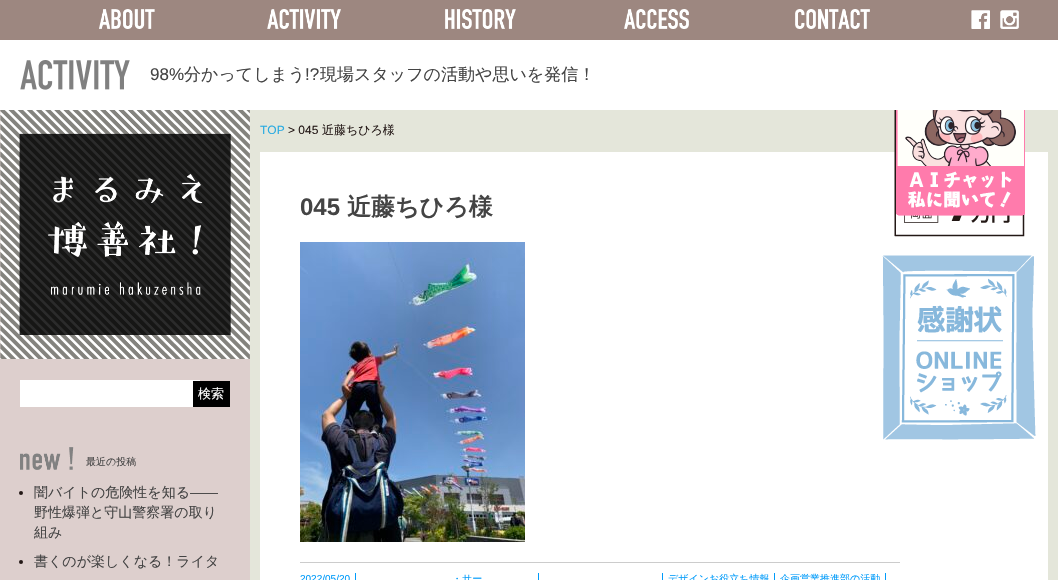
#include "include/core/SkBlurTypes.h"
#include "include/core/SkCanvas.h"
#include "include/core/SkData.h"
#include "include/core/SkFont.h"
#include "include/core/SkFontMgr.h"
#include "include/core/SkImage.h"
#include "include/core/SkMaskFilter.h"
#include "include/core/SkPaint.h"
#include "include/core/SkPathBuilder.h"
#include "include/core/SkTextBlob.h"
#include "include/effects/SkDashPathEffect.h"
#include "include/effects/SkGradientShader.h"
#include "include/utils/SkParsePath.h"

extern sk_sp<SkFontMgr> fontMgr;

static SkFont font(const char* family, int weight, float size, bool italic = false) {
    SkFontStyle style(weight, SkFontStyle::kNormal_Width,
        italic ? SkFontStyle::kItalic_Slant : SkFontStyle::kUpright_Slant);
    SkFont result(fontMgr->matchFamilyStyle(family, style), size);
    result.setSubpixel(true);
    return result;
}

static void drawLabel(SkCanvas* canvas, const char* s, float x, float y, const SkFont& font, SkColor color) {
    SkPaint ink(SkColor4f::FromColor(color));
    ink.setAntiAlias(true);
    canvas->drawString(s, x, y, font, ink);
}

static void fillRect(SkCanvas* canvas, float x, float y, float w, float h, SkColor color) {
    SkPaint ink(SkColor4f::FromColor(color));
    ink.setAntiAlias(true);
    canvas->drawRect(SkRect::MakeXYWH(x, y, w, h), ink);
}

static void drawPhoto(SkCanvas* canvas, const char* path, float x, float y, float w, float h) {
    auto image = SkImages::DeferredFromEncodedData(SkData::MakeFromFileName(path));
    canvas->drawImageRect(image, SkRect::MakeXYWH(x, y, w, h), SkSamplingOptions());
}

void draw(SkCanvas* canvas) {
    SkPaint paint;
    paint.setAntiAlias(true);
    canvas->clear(0xFFE4E6DA);
    fillRect(canvas, 0, 0, 1058, 40, 0xFF9D8780);
    drawPhoto(canvas, "assets/img1.png", 99, 9, 56, 20);
    drawPhoto(canvas, "assets/img2.png", 267, 9, 74, 20);
    drawPhoto(canvas, "assets/img3.png", 445, 9, 71, 20);
    drawPhoto(canvas, "assets/img4.png", 624, 9, 65, 20);
    drawPhoto(canvas, "assets/img5.png", 795, 9, 75, 20);
    drawPhoto(canvas, "assets/img6.png", 971, 10, 19, 19);
    drawPhoto(canvas, "assets/img7.png", 1000, 10, 19, 19);
    fillRect(canvas, 0, 40, 1058, 70, 0xFFFFFFFF);
    drawPhoto(canvas, "assets/img8.png", 20, 60, 110, 30);
    SkFont font1 = font("Liberation Sans", 400, 17);
    drawLabel(canvas, "98%", 150, 80, font1, 0xFF444444);
    SkFont font2 = font("WenQuanYi Zen Hei", 500, 17);
    drawLabel(canvas, "分かってしまう", 184, 80, font2, 0xFF444444);
    drawLabel(canvas, "!?", 305, 80, font1, 0xFF444444);
    drawLabel(canvas, "現場スタッフの活動や思いを発信！", 320, 80, font2, 0xFF444444);
    fillRect(canvas, 260, 152, 788, 428, 0xFFFFFFFF);
    drawPhoto(canvas, "assets/img9.png", 894, 110, 131, 127);
    drawPhoto(canvas, "assets/img10.png", 882, 255, 154, 185);
    fillRect(canvas, 0, 110, 250, 470, 0xFFDDCFCD);
    drawPhoto(canvas, "assets/img11.png", 0, 110, 250, 249);
    fillRect(canvas, 20, 380, 180, 27, 0xFFFFFFFF);
    fillRect(canvas, 193, 381, 37, 26, 0xFF000000);
    SkFont font3 = font("WenQuanYi Zen Hei", 500, 13);
    drawLabel(canvas, "検索", 198, 398, font3, 0xFFFFFFFF);
    drawPhoto(canvas, "assets/img12.png", 20, 447, 54, 23);
    SkFont font4 = font("WenQuanYi Zen Hei", 500, 10);
    drawLabel(canvas, "最近の投稿", 86, 465, font4, 0xFF444444);
    paint.setColor(0xFF231816);
    canvas->drawCircle(21, 493, 2, paint);
    SkFont font5 = font("WenQuanYi Zen Hei", 500, 14);
    drawLabel(canvas, "闇バイトの危険性を知る", 34, 497, font5, 0xFF444444);
    SkFont font6 = font("Liberation Sans", 400, 14);
    drawLabel(canvas, "――", 190, 497, font6, 0xFF444444);
    drawLabel(canvas, "野性爆弾と守山警察署の取り", 34, 517, font5, 0xFF444444);
    drawLabel(canvas, "組み", 34, 537, font5, 0xFF444444);
    canvas->drawCircle(21, 562, 2, paint);
    drawLabel(canvas, "書くのが楽しくなる！ライタ", 34, 566, font5, 0xFF444444);
    SkFont font7 = font("Liberation Sans", 400, 12);
    drawLabel(canvas, "TOP", 260, 134, font7, 0xFF29ABE2);
    drawLabel(canvas, "> 045", 288, 134, font7, 0xFF231816);
    SkFont font8 = font("WenQuanYi Zen Hei", 500, 12);
    drawLabel(canvas, "近藤ちひろ様", 322, 134, font8, 0xFF231816);
    SkFont font9 = font("Liberation Sans", 700, 24);
    drawLabel(canvas, "045", 300, 215, font9, 0xFF444444);
    SkFont font10 = font("WenQuanYi Zen Hei", 700, 24);
    drawLabel(canvas, "近藤ちひろ様", 347, 215, font10, 0xFF444444);
    drawPhoto(canvas, "assets/img13.png", 300, 242, 225, 300);
    fillRect(canvas, 300, 562, 600, 1, 0xFFCCCCCC);
    fillRect(canvas, 355, 573, 1, 7, 0xFF009BFA);
    SkFont font11 = font("Liberation Sans", 400, 10);
    drawLabel(canvas, "2022/05/20", 300, 582, font11, 0xFF009BFA);
    fillRect(canvas, 538, 573, 1, 7, 0xFF009BFA);
    drawLabel(canvas, "・サー", 452, 582, font4, 0xFF009BFA);
    fillRect(canvas, 662, 573, 1, 7, 0xFF009BFA);
    fillRect(canvas, 774, 573, 1, 7, 0xFF009BFA);
    drawLabel(canvas, "デザインお役立ち情報", 668, 582, font4, 0xFF009BFA);
    fillRect(canvas, 885, 573, 1, 7, 0xFF009BFA);
    drawLabel(canvas, "企画営業推進部の活動", 780, 582, font4, 0xFF009BFA);
    drawPhoto(canvas, "assets/img14.png", 896, 110, 129, 106);
}
